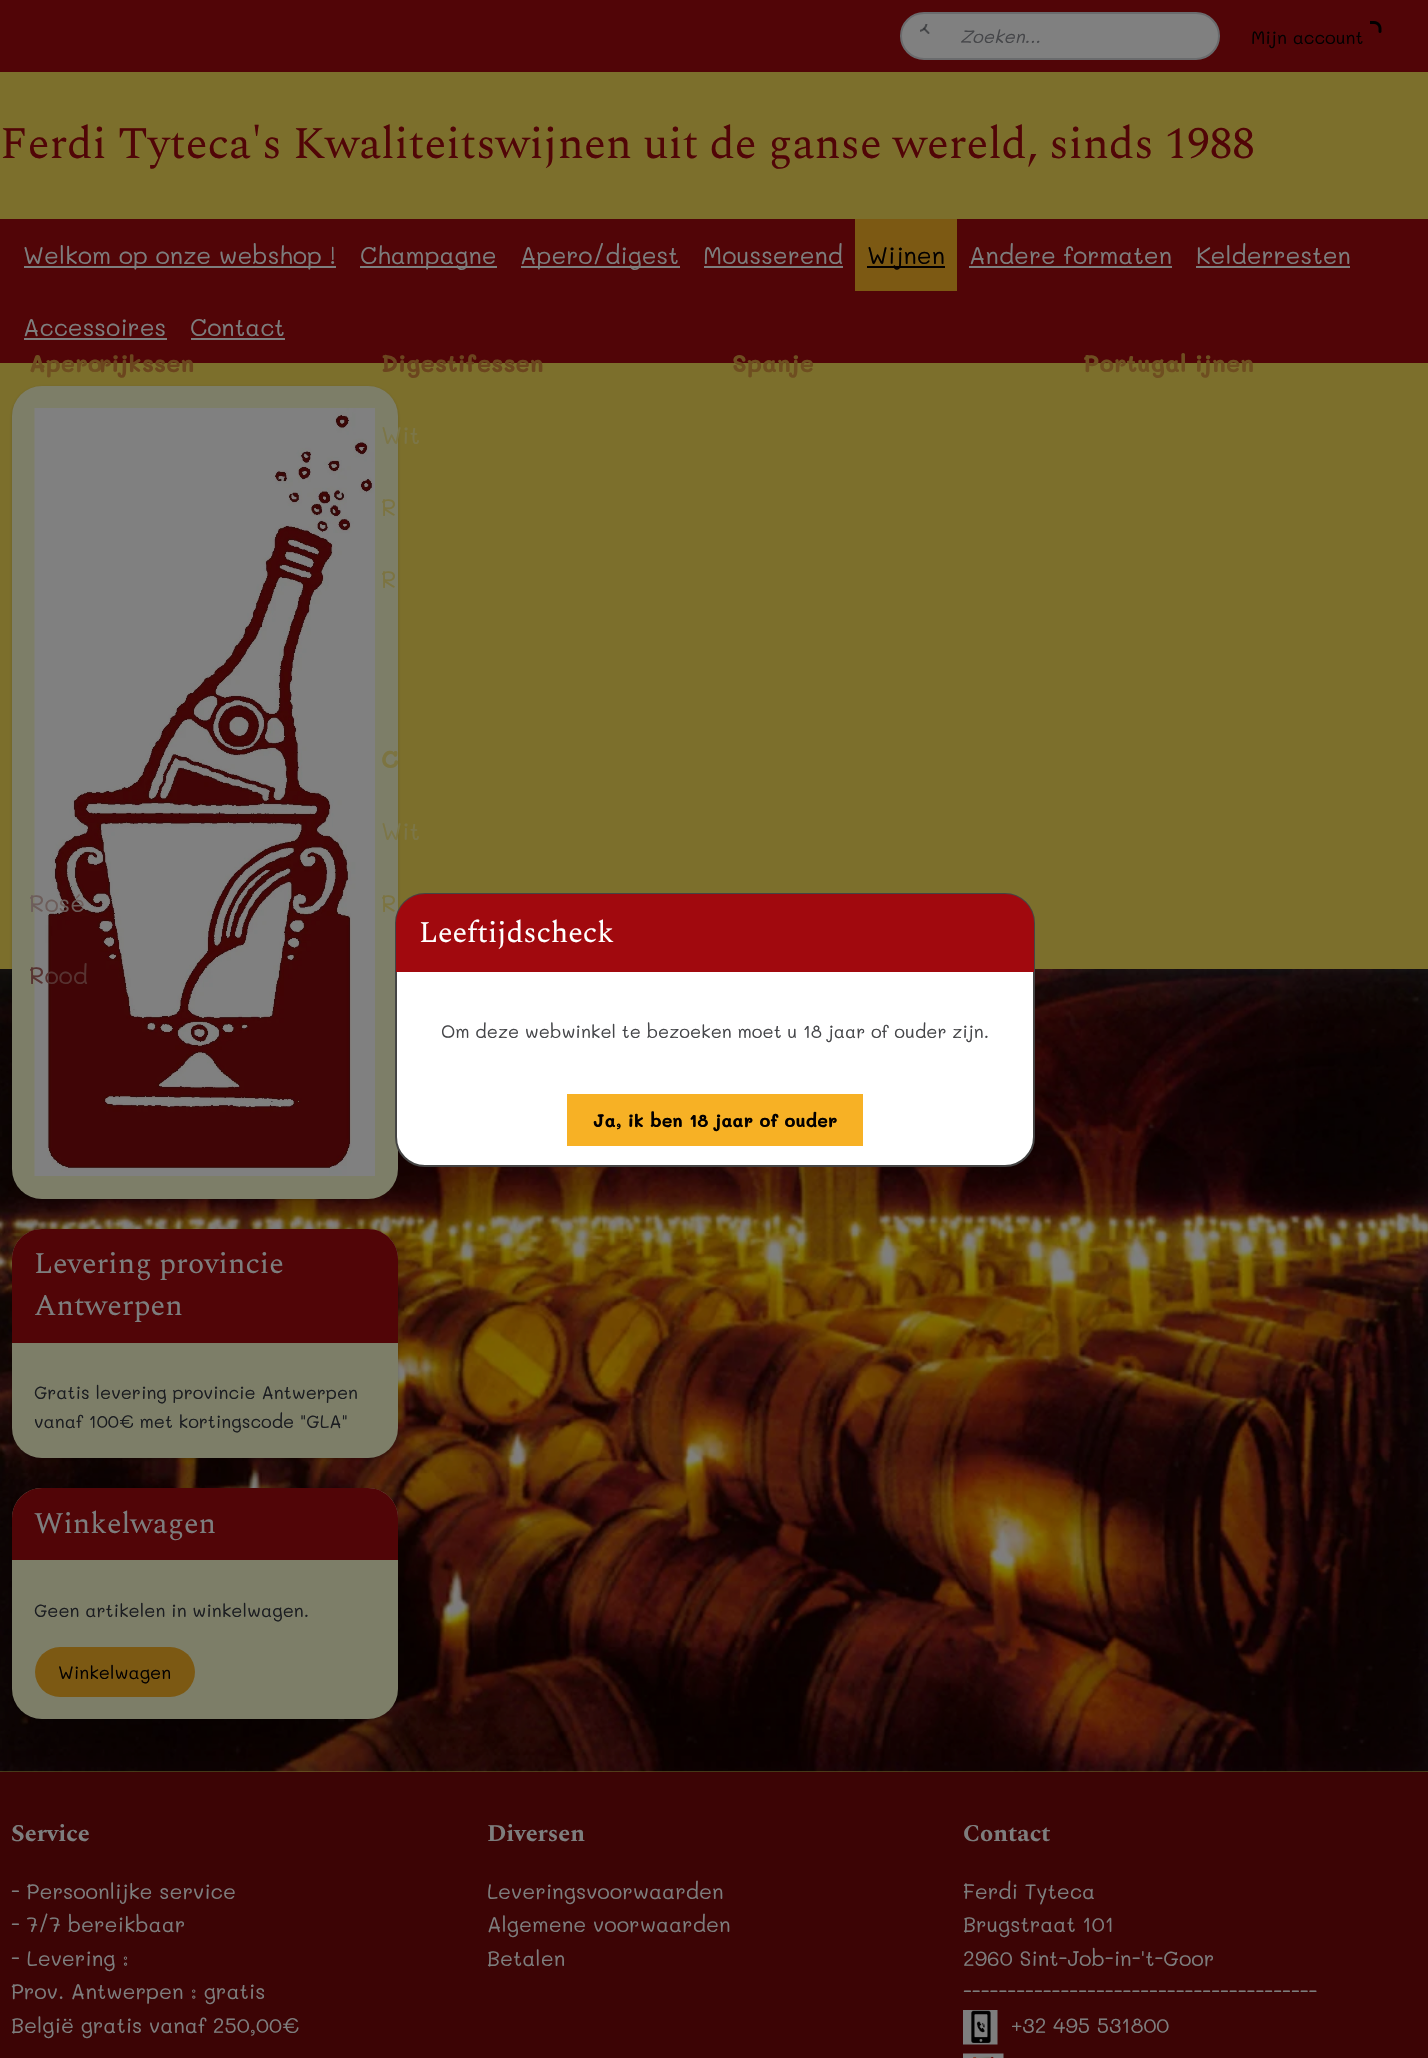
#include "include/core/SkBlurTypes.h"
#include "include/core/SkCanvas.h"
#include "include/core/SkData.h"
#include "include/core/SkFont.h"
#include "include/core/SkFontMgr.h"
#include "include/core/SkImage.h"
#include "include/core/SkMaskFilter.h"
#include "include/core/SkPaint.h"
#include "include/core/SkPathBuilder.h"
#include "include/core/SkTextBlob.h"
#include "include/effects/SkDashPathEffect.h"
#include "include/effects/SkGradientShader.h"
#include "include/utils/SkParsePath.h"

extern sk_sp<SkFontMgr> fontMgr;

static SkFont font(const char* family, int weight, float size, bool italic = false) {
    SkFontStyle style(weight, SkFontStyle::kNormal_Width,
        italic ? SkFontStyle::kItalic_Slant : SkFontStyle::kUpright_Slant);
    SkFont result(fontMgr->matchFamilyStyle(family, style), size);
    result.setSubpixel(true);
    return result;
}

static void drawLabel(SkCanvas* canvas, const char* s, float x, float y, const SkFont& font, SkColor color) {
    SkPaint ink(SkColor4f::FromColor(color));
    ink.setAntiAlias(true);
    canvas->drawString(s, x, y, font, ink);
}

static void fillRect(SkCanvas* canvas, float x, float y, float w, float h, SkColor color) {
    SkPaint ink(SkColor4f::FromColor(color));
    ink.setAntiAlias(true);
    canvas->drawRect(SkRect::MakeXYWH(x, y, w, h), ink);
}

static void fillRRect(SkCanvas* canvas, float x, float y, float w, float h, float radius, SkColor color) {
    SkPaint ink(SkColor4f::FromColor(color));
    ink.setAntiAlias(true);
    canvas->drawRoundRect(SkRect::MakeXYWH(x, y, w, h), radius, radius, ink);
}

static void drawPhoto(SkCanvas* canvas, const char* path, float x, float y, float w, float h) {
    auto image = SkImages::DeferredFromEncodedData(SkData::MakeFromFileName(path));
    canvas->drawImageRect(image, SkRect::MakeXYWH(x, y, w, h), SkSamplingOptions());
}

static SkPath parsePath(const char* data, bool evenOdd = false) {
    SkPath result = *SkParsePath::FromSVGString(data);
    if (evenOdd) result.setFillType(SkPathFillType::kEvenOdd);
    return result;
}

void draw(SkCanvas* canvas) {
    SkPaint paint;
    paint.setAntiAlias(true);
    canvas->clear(0xFF3C0405);
    fillRect(canvas, 0, 72, 1428, 1700, 0xFF7C6F2C);
    drawPhoto(canvas, "assets/img1.png", 0, 969, 1428, 803);
    fillRect(canvas, 0, 0, 1428, 72, 0xFF510507);
    paint.setColor(0xFF808080);
    canvas->drawRoundRect(SkRect::MakeXYWH(901, 13, 318, 46), 23, 23, paint);
    paint.setStroke(true);
    paint.setStrokeWidth(2);
    paint.setColor(0xFF6A6B6D);
    canvas->drawRoundRect(SkRect::MakeXYWH(901, 13, 318, 46), 23, 23, paint);
    drawPhoto(canvas, "assets/img2.png", 920, 24, 10, 10);
    SkFont font1 = font("Mali", 400, 18, true);
    drawLabel(canvas, "Zoeken...", 960, 43, font1, 0xFF454649);
    drawPhoto(canvas, "assets/img3.png", 1370, 21, 12, 12);
    SkFont font2 = font("Mali", 400, 18);
    drawLabel(canvas, "Mijn account", 1251, 44, font2, 0xFF030000);
    SkFont font3 = font("Spectral", 400, 45);
    drawLabel(canvas, "Ferdi Tyteca's Kwaliteitswijnen uit de ganse wereld, sinds 1988", 0, 158, font3, 0xFF510507);
    fillRect(canvas, 0, 219, 1428, 144, 0xFF510507);
    fillRect(canvas, 521, 266, 159, 2, 0xFF7E7E7E);
    SkFont font4 = font("Mali", 400, 24);
    drawLabel(canvas, "Apero/digest", 520, 264, font4, 0xFF7D7D7D);
    SkFont font5 = font("Mali", 700, 24);
    drawLabel(canvas, "Apero", 29, 372, font5, 0xFF6E4E20);
    drawLabel(canvas, "Digestif", 381, 372, font5, 0xFF6B451E);
    fillRect(canvas, 24, 266, 312, 2, 0xFF7E7E7E);
    drawLabel(canvas, "Welkom op onze webshop !", 23, 264, font4, 0xFF7D7D7D);
    drawLabel(canvas, "Andere formaten", 969, 264, font4, 0xFF7D7D7D);
    fillRect(canvas, 969, 266, 203, 2, 0xFF7E7E7E);
    drawLabel(canvas, "ssen", 142, 372, font5, 0xFF6B451E);
    drawLabel(canvas, "essen", 477, 372, font5, 0xFF6B451E);
    fillRect(canvas, 360, 266, 137, 2, 0xFF7E7E7E);
    drawLabel(canvas, "Champagne", 360, 264, font4, 0xFF7D7D7D);
    drawLabel(canvas, "Mousserend", 703, 264, font4, 0xFF7D7D7D);
    fillRect(canvas, 704, 266, 139, 2, 0xFF7E7E7E);
    drawLabel(canvas, "Kelderresten", 1196, 264, font4, 0xFF7D7D7D);
    fillRect(canvas, 1196, 266, 154, 2, 0xFF7E7E7E);
    drawLabel(canvas, "ijnen", 1195, 372, font5, 0xFF6E4E20);
    fillRect(canvas, 855, 219, 102, 72, 0xFF7C5913);
    fillRect(canvas, 867, 266, 78, 2, 0xFF030000);
    drawLabel(canvas, "Wijnen", 867, 264, font4, 0xFF030000);
    drawLabel(canvas, "rijk", 99, 372, font5, 0xFF6B451E);
    drawLabel(canvas, "Spanje", 732, 372, font5, 0xFF6E4E20);
    drawLabel(canvas, "Portugal", 1083, 372, font5, 0xFF6E4E20);
    paint.setStroke(false);
    paint.setColor(0x26000000);
    paint.setMaskFilter(SkMaskFilter::MakeBlur(kNormal_SkBlurStyle, 1.5f));
    canvas->drawRoundRect(SkRect::MakeXYWH(12, 387, 386, 813), 30, 30, paint);
    paint.setMaskFilter(nullptr);
    fillRRect(canvas, 12, 386, 386, 813, 30, 0xFF7D7E68);
    drawLabel(canvas, "Wit", 381, 444, font4, 0xFF7C7648);
    drawLabel(canvas, "R", 381, 516, font4, 0xFF7C7441);
    drawLabel(canvas, "R", 381, 588, font4, 0xFF7C7441);
    drawLabel(canvas, "C", 381, 768, font5, 0xFF7C7441);
    drawLabel(canvas, "Wit", 381, 840, font4, 0xFF7C7648);
    drawLabel(canvas, "R", 381, 912, font4, 0xFF7C7441);
    drawPhoto(canvas, "assets/img4.png", 34, 408, 341, 768);
    drawLabel(canvas, "Rosé", 29, 912, font4, 0xFF6D5D5A);
    drawLabel(canvas, "Rood", 29, 984, font4, 0xFF573331);
    drawLabel(canvas, "Accessoires", 23, 336, font4, 0xFF7D7D7D);
    fillRect(canvas, 24, 338, 143, 2, 0xFF7E7E7E);
    drawLabel(canvas, "Contact", 190, 336, font4, 0xFF7D7D7D);
    fillRect(canvas, 191, 338, 94, 2, 0xFF7E7E7E);
    paint.setMaskFilter(SkMaskFilter::MakeBlur(kNormal_SkBlurStyle, 1.5f));
    canvas->drawRoundRect(SkRect::MakeXYWH(12, 1230, 386, 230), 30, 30, paint);
    paint.setMaskFilter(nullptr);
    fillRRect(canvas, 12, 1229, 386, 229, 30, 0xFF7D7E68);
    paint.setColor(0xFF510507);
    canvas->drawPath(parsePath("M42 1229H368C384.5 1229 398 1242.5 398 1259V1343H12V1259C12 1242.5 25.5 1229 42 1229Z"), paint);
    SkFont font6 = font("Spectral", 400, 30);
    drawLabel(canvas, "Levering provincie", 34, 1273, font6, 0xFF7D7D7D);
    drawLabel(canvas, "Antwerpen", 34, 1315, font6, 0xFF7D7D7D);
    drawLabel(canvas, "Gratis levering provincie Antwerpen", 34, 1399, font2, 0xFF1A1C20);
    drawLabel(canvas, "vanaf 100€ met kortingscode \"GLA\"", 34, 1428, font2, 0xFF1A1C20);
    paint.setColor(0x26000000);
    paint.setMaskFilter(SkMaskFilter::MakeBlur(kNormal_SkBlurStyle, 1.5f));
    canvas->drawRoundRect(SkRect::MakeXYWH(12, 1490, 386, 231), 30, 30, paint);
    paint.setMaskFilter(nullptr);
    fillRRect(canvas, 12, 1488, 386, 231, 30, 0xFF7D7E68);
    paint.setColor(0xFF510507);
    canvas->drawPath(parsePath("M42 1488H368C384.5 1488 398 1501.5 398 1518V1560H12V1518C12 1501.5 25.5 1488 42 1488Z"), paint);
    drawLabel(canvas, "Winkelwagen", 34, 1533, font6, 0xFF7D7D7D);
    drawLabel(canvas, "Geen artikelen in winkelwagen.", 34, 1617, font2, 0xFF1A1C20);
    fillRRect(canvas, 35, 1647, 160, 50, 25, 0xFF7C5913);
    drawLabel(canvas, "Winkelwagen", 58, 1679, font2, 0xFF030000);
    SkFont font7 = font("Spectral", 700, 24);
    drawLabel(canvas, "Service", 11, 1841, font7, 0xFF7D7D7D);
    SkFont font8 = font("Mali", 400, 21);
    drawLabel(canvas, "- Persoonlijke service", 11, 1899, font8, 0xFF7D7D7D);
    drawLabel(canvas, "- 7/7 bereikbaar", 11, 1932, font8, 0xFF7D7D7D);
    drawLabel(canvas, "- Levering :", 11, 1966, font8, 0xFF7D7D7D);
    drawLabel(canvas, "Prov. Antwerpen : gratis", 11, 1999, font8, 0xFF7D7D7D);
    drawLabel(canvas, "België gratis vanaf 250,00€", 11, 2033, font8, 0xFF7D7D7D);
    drawLabel(canvas, "Diversen", 487, 1841, font7, 0xFF7D7D7D);
    drawLabel(canvas, "Leveringsvoorwaarden", 487, 1899, font8, 0xFF7D7D7D);
    drawLabel(canvas, "Algemene voorwaarden", 487, 1932, font8, 0xFF7D7D7D);
    drawLabel(canvas, "Betalen", 487, 1966, font8, 0xFF7D7D7D);
    drawLabel(canvas, "Contact", 963, 1841, font7, 0xFF7D7D7D);
    drawLabel(canvas, "Ferdi Tyteca", 963, 1899, font8, 0xFF7D7D7D);
    drawLabel(canvas, "Brugstraat 101", 963, 1932, font8, 0xFF7D7D7D);
    drawLabel(canvas, "2960 Sint-Job-in-'t-Goor", 963, 1966, font8, 0xFF7D7D7D);
    drawLabel(canvas, "----------------------------------------", 963, 1999, font8, 0xFF7D7D7D);
    drawPhoto(canvas, "assets/img5.png", 963, 2010, 35, 35);
    drawLabel(canvas, "+32 495 531800", 1011, 2033, font8, 0xFF7D7D7D);
    drawPhoto(canvas, "assets/img6.png", 963, 2053, 41, 5);
    paint.setColor(0xFFFFFFFF);
    canvas->drawRoundRect(SkRect::MakeXYWH(396, 894, 638, 272), 29, 29, paint);
    paint.setStroke(true);
    paint.setColor(0xFF444444);
    canvas->drawRoundRect(SkRect::MakeXYWH(396, 894, 638, 272), 29, 29, paint);
    paint.setStroke(false);
    paint.setColor(0xFFA1090E);
    canvas->drawPath(parsePath("M425 894H1005C1021 894 1034 907 1034 923V972H396V923C396 907 409 894 425 894Z"), paint);
    drawLabel(canvas, "Leeftijdscheck", 419, 942, font6, 0xFFFFFFFF);
    drawLabel(canvas, "Om deze webwinkel te bezoeken moet u 18 jaar of ouder zijn.", 441, 1038, font2, 0xFF454649);
    fillRect(canvas, 567, 1094, 296, 52, 0xFFF7B125);
    SkFont font9 = font("Mali", 700, 18);
    drawLabel(canvas, "Ja, ik ben 18 jaar of ouder", 593, 1127, font9, 0xFF030000);
}
